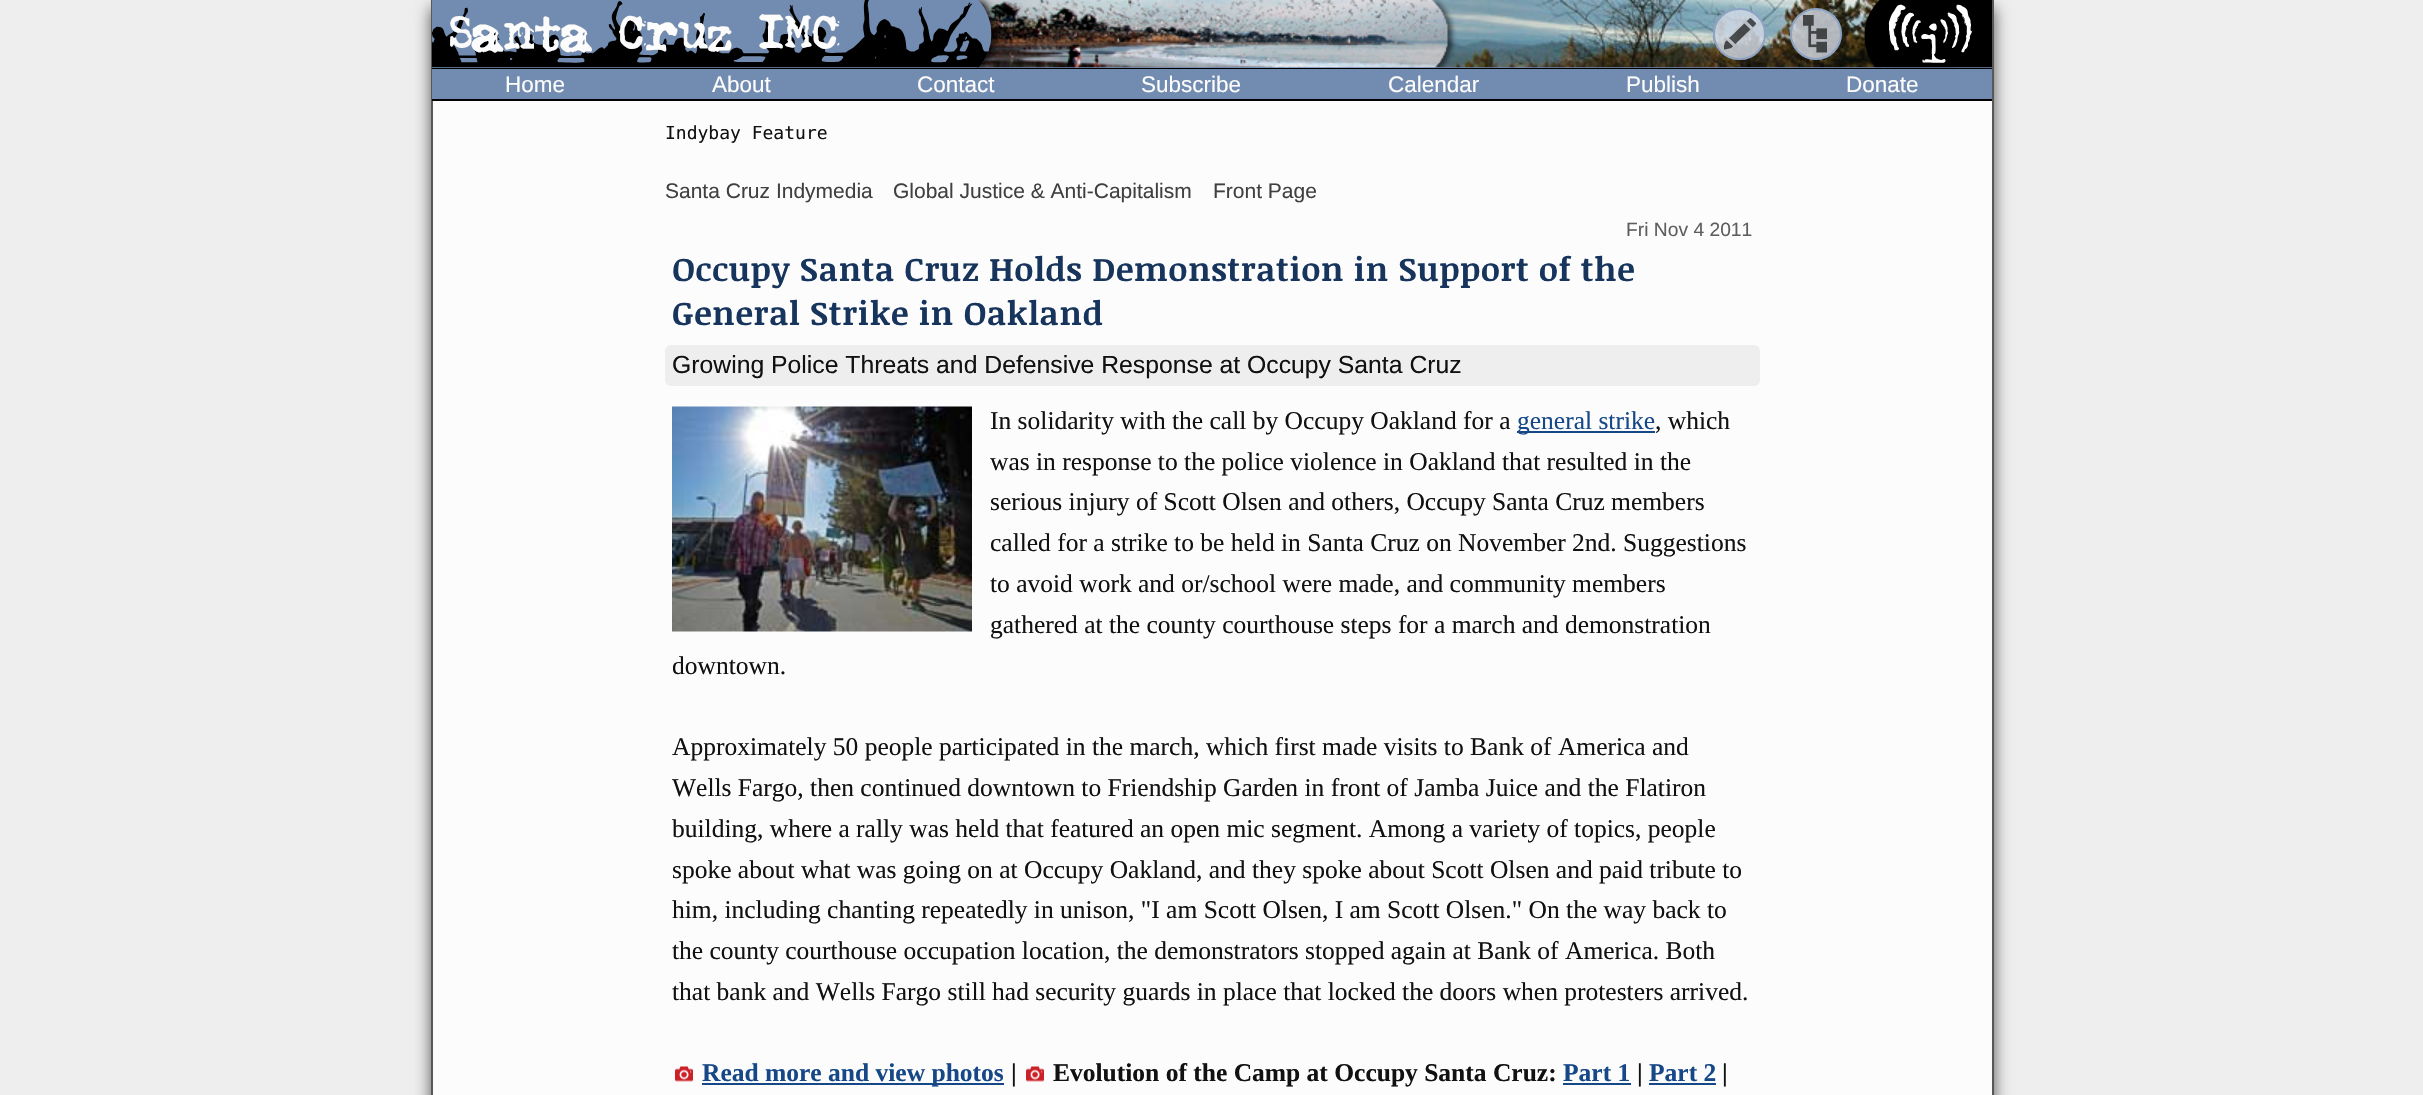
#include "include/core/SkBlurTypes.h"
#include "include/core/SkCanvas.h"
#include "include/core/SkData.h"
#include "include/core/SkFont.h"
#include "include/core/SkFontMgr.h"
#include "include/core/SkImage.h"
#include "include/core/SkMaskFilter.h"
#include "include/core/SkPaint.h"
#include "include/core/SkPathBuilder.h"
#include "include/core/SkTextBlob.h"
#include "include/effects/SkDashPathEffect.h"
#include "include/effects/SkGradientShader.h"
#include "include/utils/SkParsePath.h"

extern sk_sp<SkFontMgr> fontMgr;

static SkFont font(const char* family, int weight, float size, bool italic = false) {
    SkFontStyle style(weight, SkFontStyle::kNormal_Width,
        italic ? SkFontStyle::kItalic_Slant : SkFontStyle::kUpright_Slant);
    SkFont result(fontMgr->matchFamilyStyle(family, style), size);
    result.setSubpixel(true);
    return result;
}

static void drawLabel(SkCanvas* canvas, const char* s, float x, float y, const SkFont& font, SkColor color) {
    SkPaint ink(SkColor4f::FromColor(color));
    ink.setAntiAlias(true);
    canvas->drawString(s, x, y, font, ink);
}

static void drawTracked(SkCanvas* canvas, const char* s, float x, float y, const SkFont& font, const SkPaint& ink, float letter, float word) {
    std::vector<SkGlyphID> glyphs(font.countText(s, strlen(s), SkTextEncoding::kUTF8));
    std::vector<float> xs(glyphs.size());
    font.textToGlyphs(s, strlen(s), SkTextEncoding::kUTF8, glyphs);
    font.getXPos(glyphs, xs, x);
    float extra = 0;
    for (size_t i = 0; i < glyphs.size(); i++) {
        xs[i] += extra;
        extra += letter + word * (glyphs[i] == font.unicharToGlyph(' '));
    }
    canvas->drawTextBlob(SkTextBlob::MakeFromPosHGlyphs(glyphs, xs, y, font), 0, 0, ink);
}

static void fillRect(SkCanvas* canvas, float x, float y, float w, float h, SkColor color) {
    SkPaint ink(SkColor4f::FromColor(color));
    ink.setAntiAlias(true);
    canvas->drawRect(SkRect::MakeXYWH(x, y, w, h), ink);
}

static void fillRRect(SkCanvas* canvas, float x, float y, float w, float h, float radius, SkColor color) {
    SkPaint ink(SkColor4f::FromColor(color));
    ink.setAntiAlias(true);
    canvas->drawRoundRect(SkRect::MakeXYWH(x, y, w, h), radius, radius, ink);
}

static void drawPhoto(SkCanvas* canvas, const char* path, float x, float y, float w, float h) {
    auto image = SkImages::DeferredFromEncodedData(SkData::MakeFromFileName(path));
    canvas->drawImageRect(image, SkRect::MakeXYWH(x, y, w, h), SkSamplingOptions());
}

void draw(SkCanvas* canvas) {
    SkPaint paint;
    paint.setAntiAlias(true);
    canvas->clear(0xFFEEEEEE);
    paint.setColor(0xA6000000);
    paint.setMaskFilter(SkMaskFilter::MakeBlur(kNormal_SkBlurStyle, 7.5f));
    canvas->drawRect(SkRect::MakeXYWH(431, 8, 1563, 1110), paint);
    paint.setMaskFilter(nullptr);
    fillRect(canvas, 433, 101, 1559, 994, 0xFFFCFCFC);
    fillRect(canvas, 1992, 0, 2, 1095, 0xFF585858);
    fillRect(canvas, 431, 0, 2, 1095, 0xFF585858);
    fillRect(canvas, 432, 67, 1560, 1, 0xFF728BB0);
    fillRect(canvas, 432, 68, 1560, 1, 0xFF000000);
    drawPhoto(canvas, "assets/img5.png", 976, 0, 905, 68);
    drawPhoto(canvas, "assets/img1.png", 432, 0, 568, 68);
    SkFont font1 = font("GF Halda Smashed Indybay", 400, 52.75f);
    drawLabel(canvas, "Santa Cruz IMC", 447, 53, font1, 0xFF50627C);
    drawLabel(canvas, "Santa Cruz IMC", 447, 53, font1, 0xFFFCFCFC);
    paint.setColor(0xCCD4DCE8);
    canvas->drawRoundRect(SkRect::MakeXYWH(1714, 9, 51, 50), 25, 25, paint);
    paint.setStroke(true);
    paint.setStrokeWidth(2);
    paint.setColor(0xFF8DA3C4);
    canvas->drawRoundRect(SkRect::MakeXYWH(1714, 9, 51, 50), 25, 25, paint);
    drawPhoto(canvas, "assets/img2.png", 1724, 18, 33, 32);
    paint.setStroke(false);
    paint.setColor(0xCCD4DCE8);
    canvas->drawCircle(1816, 34, 25, paint);
    paint.setStroke(true);
    paint.setColor(0xFF8DA3C4);
    canvas->drawCircle(1816, 34, 25, paint);
    drawPhoto(canvas, "assets/img3.png", 1803, 15, 24, 38);
    drawPhoto(canvas, "assets/img4.png", 1864, 0, 128, 68);
    fillRect(canvas, 432, 69, 1560, 30, 0xFF728BB0);
    fillRect(canvas, 432, 99, 1560, 2, 0xFF000000);
    SkFont font2 = font("Liberation Sans", 400, 22.5f);
    drawLabel(canvas, "Home", 505, 92, font2, 0xFFFCFCFC);
    drawLabel(canvas, "About", 712, 92, font2, 0xFFFCFCFC);
    drawLabel(canvas, "Contact", 917, 92, font2, 0xFFFCFCFC);
    drawLabel(canvas, "Subscribe", 1141, 92, font2, 0xFFFCFCFC);
    drawLabel(canvas, "Calendar", 1388, 92, font2, 0xFFFCFCFC);
    drawLabel(canvas, "Publish", 1626, 92, font2, 0xFFFCFCFC);
    drawLabel(canvas, "Donate", 1846, 92, font2, 0xFFFCFCFC);
    SkFont font3 = font("DejaVu Sans Mono", 400, 18);
    drawLabel(canvas, "Indybay Feature", 665, 139, font3, 0xFF111111);
    SkFont font4 = font("Liberation Sans", 400, 21);
    drawLabel(canvas, "Santa Cruz Indymedia", 665, 198, font4, 0xFF404040);
    drawLabel(canvas, "Global Justice & Anti-Capitalism", 893, 198, font4, 0xFF404040);
    drawLabel(canvas, "Front Page", 1213, 198, font4, 0xFF404040);
    SkFont font5 = font("Liberation Sans", 400, 19.25f);
    drawLabel(canvas, "Fri Nov 4 2011", 1626, 236, font5, 0xFF5E5E5E);
    SkFont font6 = font("Noticia Text", 700, 33);
    paint.setStroke(false);
    paint.setColor(0xFF16345C);
    drawTracked(canvas, "Occupy Santa Cruz Holds Demonstration in Support of the", 672, 281, font6, paint, 0.75f, 0);
    drawTracked(canvas, "General Strike in Oakland", 672, 325, font6, paint, 0.75f, 0);
    fillRRect(canvas, 665, 345, 1095, 41, 6, 0xFFEEEEEE);
    SkFont font7 = font("Liberation Sans", 400, 24.75f);
    drawLabel(canvas, "Growing Police Threats and Defensive Response at Occupy Santa Cruz", 672, 373, font7, 0xFF111111);
    drawPhoto(canvas, "assets/img6.png", 672, 406, 300, 226);
    SkFont font8 = font("Liberation Serif", 400, 25.5f);
    drawLabel(canvas, "In solidarity with the call by Occupy Oakland for a", 990, 429, font8, 0xFF111111);
    fillRect(canvas, 1517, 431, 138, 2, 0xFF164888);
    drawLabel(canvas, "general strike", 1517, 429, font8, 0xFF164888);
    drawLabel(canvas, ", which", 1655, 429, font8, 0xFF111111);
    drawLabel(canvas, "was in response to the police violence in Oakland that resulted in the", 990, 470, font8, 0xFF111111);
    drawLabel(canvas, "serious injury of Scott Olsen and others, Occupy Santa Cruz members", 990, 510, font8, 0xFF111111);
    drawLabel(canvas, "called for a strike to be held in Santa Cruz on November 2nd. Suggestions", 990, 551, font8, 0xFF111111);
    drawLabel(canvas, "to avoid work and or/school were made, and community members", 990, 592, font8, 0xFF111111);
    drawLabel(canvas, "gathered at the county courthouse steps for a march and demonstration", 990, 633, font8, 0xFF111111);
    drawLabel(canvas, "downtown.", 672, 674, font8, 0xFF111111);
    drawLabel(canvas, "Approximately 50 people participated in the march, which first made visits to Bank of America and", 672, 755, font8, 0xFF111111);
    drawLabel(canvas, "Wells Fargo, then continued downtown to Friendship Garden in front of Jamba Juice and the Flatiron", 672, 796, font8, 0xFF111111);
    drawLabel(canvas, "building, where a rally was held that featured an open mic segment. Among a variety of topics, people", 672, 837, font8, 0xFF111111);
    drawLabel(canvas, "spoke about what was going on at Occupy Oakland, and they spoke about Scott Olsen and paid tribute to", 672, 878, font8, 0xFF111111);
    drawLabel(canvas, "him, including chanting repeatedly in unison, \"I am Scott Olsen, I am Scott Olsen.\" On the way back to", 672, 918, font8, 0xFF111111);
    drawLabel(canvas, "the county courthouse occupation location, the demonstrators stopped again at Bank of America. Both", 672, 959, font8, 0xFF111111);
    drawLabel(canvas, "that bank and Wells Fargo still had security guards in place that locked the doors when protesters arrived.", 672, 1000, font8, 0xFF111111);
    drawPhoto(canvas, "assets/img7.png", 675, 1066, 18, 16);
    fillRect(canvas, 702, 1083, 302, 2, 0xFF164888);
    SkFont font9 = font("Liberation Serif", 700, 25.5f);
    drawLabel(canvas, "Read more and view photos", 702, 1081, font9, 0xFF164888);
    drawLabel(canvas, "|", 1011, 1081, font9, 0xFF111111);
    drawPhoto(canvas, "assets/img7.png", 1026, 1066, 18, 16);
    drawLabel(canvas, "Evolution of the Camp at Occupy Santa Cruz:", 1053, 1081, font9, 0xFF111111);
    drawLabel(canvas, "Part 1", 1563, 1081, font9, 0xFF164888);
    fillRect(canvas, 1563, 1083, 68, 2, 0xFF164888);
    drawLabel(canvas, "|", 1637, 1081, font9, 0xFF111111);
    drawLabel(canvas, "Part 2", 1649, 1081, font9, 0xFF164888);
    fillRect(canvas, 1649, 1083, 67, 2, 0xFF164888);
    drawLabel(canvas, "|", 1722, 1081, font9, 0xFF111111);
}
